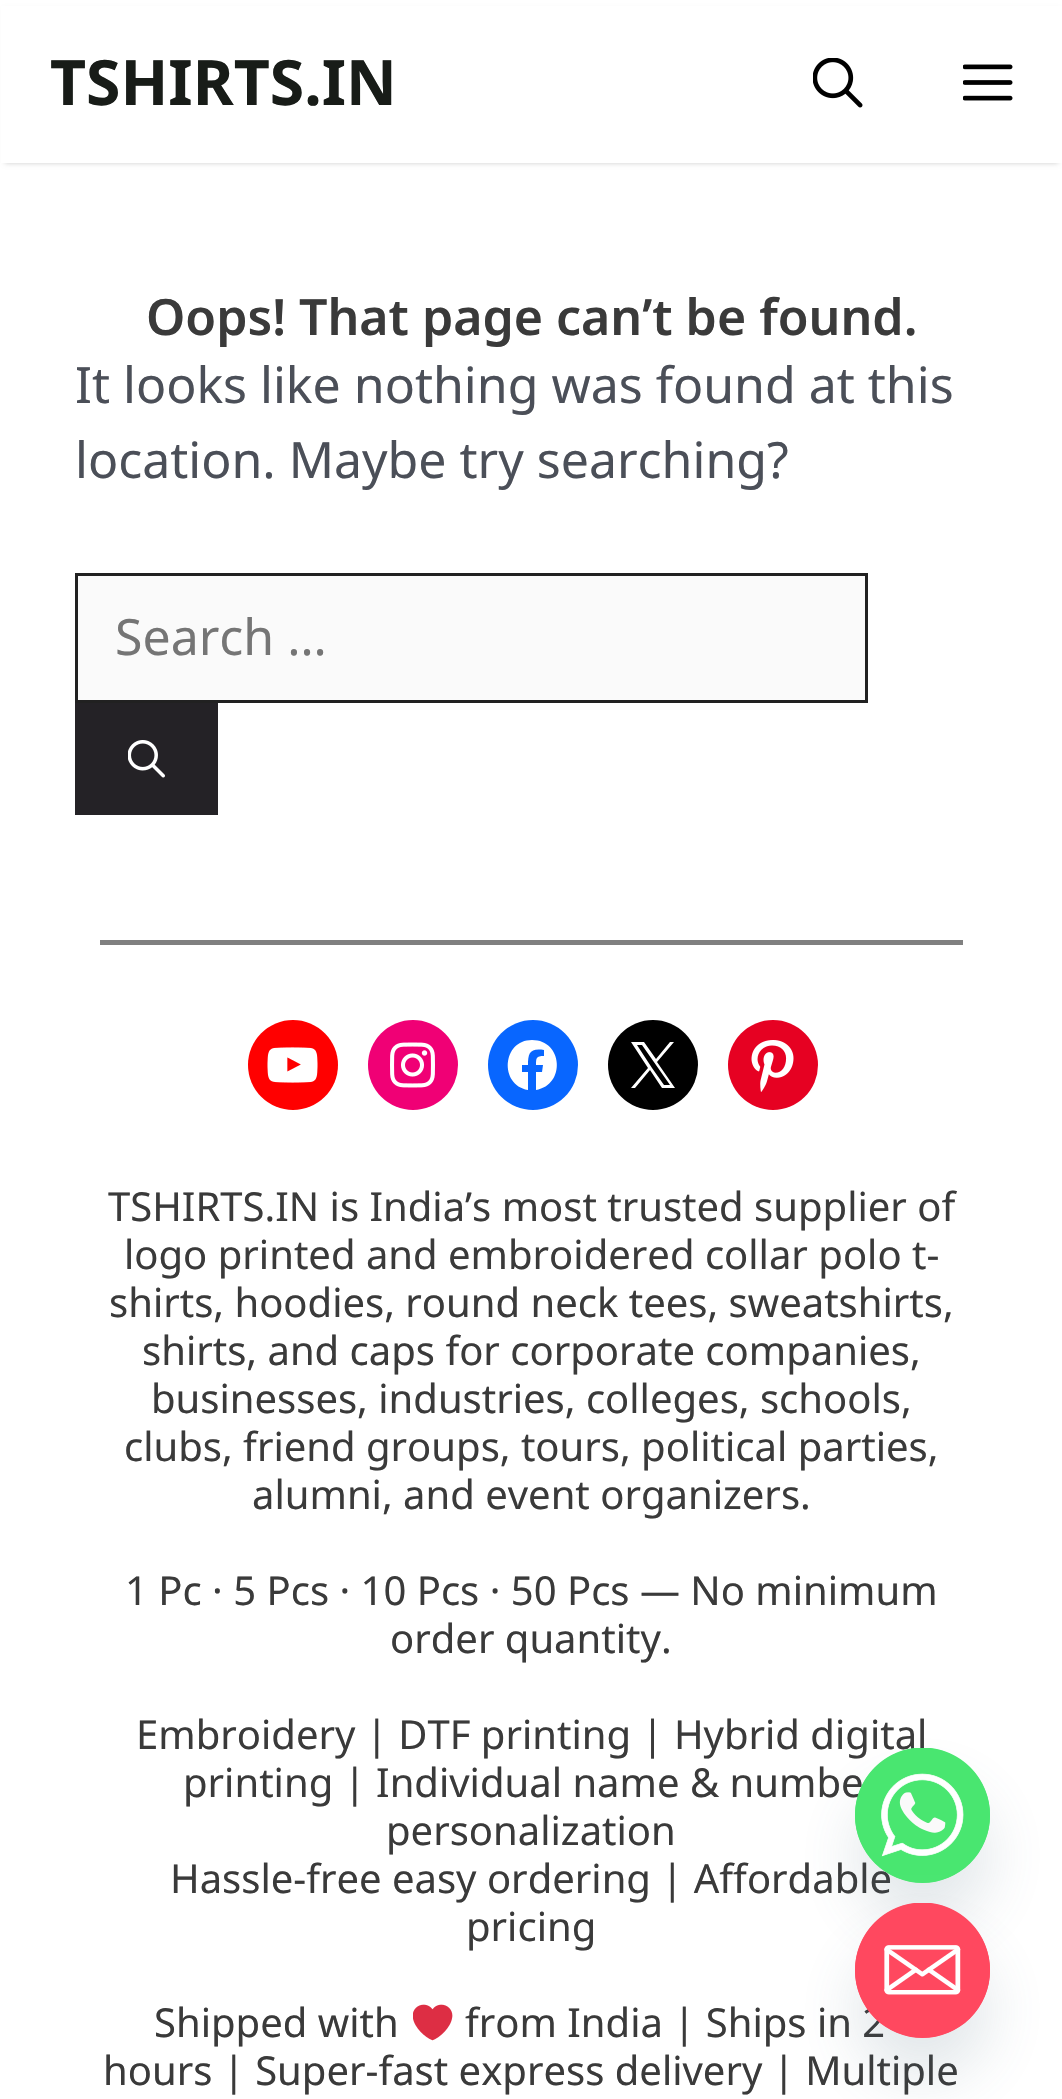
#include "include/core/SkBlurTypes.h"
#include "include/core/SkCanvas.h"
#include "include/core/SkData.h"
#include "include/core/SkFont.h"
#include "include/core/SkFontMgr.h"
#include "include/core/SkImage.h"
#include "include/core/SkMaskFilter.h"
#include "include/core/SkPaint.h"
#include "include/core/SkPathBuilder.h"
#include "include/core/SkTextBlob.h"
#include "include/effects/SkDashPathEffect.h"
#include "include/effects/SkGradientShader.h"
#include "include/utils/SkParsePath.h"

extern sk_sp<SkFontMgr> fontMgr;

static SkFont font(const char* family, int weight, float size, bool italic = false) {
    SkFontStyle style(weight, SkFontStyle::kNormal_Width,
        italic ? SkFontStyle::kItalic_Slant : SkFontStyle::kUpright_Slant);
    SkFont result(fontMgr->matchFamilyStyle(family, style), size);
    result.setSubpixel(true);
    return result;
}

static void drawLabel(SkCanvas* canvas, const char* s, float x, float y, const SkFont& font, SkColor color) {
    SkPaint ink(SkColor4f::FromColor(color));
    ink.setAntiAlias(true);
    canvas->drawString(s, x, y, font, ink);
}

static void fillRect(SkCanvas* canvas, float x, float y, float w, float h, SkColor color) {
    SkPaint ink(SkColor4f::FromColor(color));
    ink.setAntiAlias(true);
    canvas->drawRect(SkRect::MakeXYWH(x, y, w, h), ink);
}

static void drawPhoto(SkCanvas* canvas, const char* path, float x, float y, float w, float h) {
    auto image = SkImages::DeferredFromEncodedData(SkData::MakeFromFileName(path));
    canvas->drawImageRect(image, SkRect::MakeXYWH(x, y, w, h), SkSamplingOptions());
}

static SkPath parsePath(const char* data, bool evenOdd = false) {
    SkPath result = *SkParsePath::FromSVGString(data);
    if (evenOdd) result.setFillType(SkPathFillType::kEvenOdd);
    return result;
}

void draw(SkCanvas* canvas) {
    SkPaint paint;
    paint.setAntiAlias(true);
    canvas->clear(0xFFFFFFFF);
    paint.setColor(0x33000000);
    paint.setMaskFilter(SkMaskFilter::MakeBlur(kNormal_SkBlurStyle, 2.5f));
    canvas->drawRect(SkRect::MakeXYWH(5, 10, 1053, 153), paint);
    paint.setMaskFilter(nullptr);
    fillRect(canvas, 1, 6, 1061, 157, 0xFFFFFFFF);
    SkFont font1 = font("Noto Sans", 700, 62.5f);
    drawLabel(canvas, "TSHIRTS.IN", 50, 105, font1, 0xFF181C18);
    drawPhoto(canvas, "assets/img1.png", 813, 58, 50, 50);
    drawPhoto(canvas, "assets/img2.png", 963, 64, 50, 37);
    SkFont font2 = font("Noto Sans", 600, 50);
    drawLabel(canvas, "Oops! That page can’t be found.", 146, 335, font2, 0xFF3A3A3A);
    SkFont font3 = font("Noto Sans", 400, 50);
    drawLabel(canvas, "It looks like nothing was found at this", 75, 403, font3, 0xFF4B4F58);
    drawLabel(canvas, "location. Maybe try searching?", 75, 478, font3, 0xFF4B4F58);
    paint.setColor(0xFFFAFAFA);
    canvas->drawRect(SkRect::MakeXYWH(76.5f, 574.5f, 790, 127), paint);
    paint.setStroke(true);
    paint.setStrokeWidth(3);
    paint.setColor(0xFF212121);
    canvas->drawRect(SkRect::MakeXYWH(76.5f, 574.5f, 790, 127), paint);
    drawLabel(canvas, "Search …", 115, 655, font3, 0xFF757575);
    fillRect(canvas, 75, 703, 143, 112, 0xFF242226);
    drawPhoto(canvas, "assets/img3.png", 128, 740, 37, 38);
    fillRect(canvas, 100, 940, 863, 5, 0xFF808080);
    paint.setStroke(false);
    paint.setColor(0xFFFF0000);
    canvas->drawCircle(293, 1065, 45, paint);
    drawPhoto(canvas, "assets/img4.png", 267, 1047, 51, 36);
    paint.setColor(0xFFF00075);
    canvas->drawCircle(413, 1065, 45, paint);
    drawPhoto(canvas, "assets/img5.png", 390, 1042, 45, 46);
    paint.setColor(0xFF0866FF);
    canvas->drawCircle(533, 1065, 45, paint);
    paint.setColor(0xFFFFFFFF);
    canvas->drawPath(parsePath("M532 1040C502 1040 499 1085 528 1090V1072H522V1065H528C528 1053 530 1048 544 1050V1056C536 1056 536 1058 536 1065H543L542 1072H536V1090C566 1085 563 1040 532 1040Z"), paint);
    paint.setColor(0xFF000000);
    canvas->drawCircle(653, 1065, 45, paint);
    paint.setColor(0xFFFFFFFF);
    canvas->drawPath(parsePath("M657 1062L674 1042H670L656 1059L644 1042H631L648 1068L631 1088H635L650 1070L662 1088H675ZM652 1068L637 1045H642L670 1085H664Z"), paint);
    paint.setColor(0xFFE60122);
    canvas->drawCircle(773, 1065, 45, paint);
    drawPhoto(canvas, "assets/img6.png", 751, 1040, 43, 52);
    SkFont font4 = font("Noto Sans", 400, 40);
    drawLabel(canvas, "TSHIRTS.IN is India’s most trusted supplier of", 108, 1221, font4, 0xFF3A3A3A);
    drawLabel(canvas, "logo printed and embroidered collar polo t-", 124, 1269, font4, 0xFF3A3A3A);
    drawLabel(canvas, "shirts, hoodies, round neck tees, sweatshirts,", 109, 1317, font4, 0xFF3A3A3A);
    drawLabel(canvas, "shirts, and caps for corporate companies,", 142, 1365, font4, 0xFF3A3A3A);
    drawLabel(canvas, "businesses, industries, colleges, schools,", 151, 1413, font4, 0xFF3A3A3A);
    drawLabel(canvas, "clubs, friend groups, tours, political parties,", 124, 1461, font4, 0xFF3A3A3A);
    drawLabel(canvas, "alumni, and event organizers.", 252, 1509, font4, 0xFF3A3A3A);
    drawLabel(canvas, "1 Pc · 5 Pcs · 10 Pcs · 50 Pcs — No minimum", 125, 1605, font4, 0xFF3A3A3A);
    drawLabel(canvas, "order quantity.", 390, 1653, font4, 0xFF3A3A3A);
    drawLabel(canvas, "Embroidery | DTF printing | Hybrid digital", 136, 1749, font4, 0xFF3A3A3A);
    drawLabel(canvas, "printing | Individual name & numbe", 183, 1797, font4, 0xFF3A3A3A);
    drawLabel(canvas, "personalization", 386, 1845, font4, 0xFF3A3A3A);
    drawLabel(canvas, "Hassle-free easy ordering | Affordable", 170, 1893, font4, 0xFF3A3A3A);
    drawLabel(canvas, "pricing", 466, 1941, font4, 0xFF3A3A3A);
    drawLabel(canvas, "Shipped with", 154, 2037, font4, 0xFF3A3A3A);
    drawPhoto(canvas, "assets/img7.png", 413, 2004, 40, 37);
    drawLabel(canvas, "from India | Ships in 2", 465, 2037, font4, 0xFF3A3A3A);
    drawLabel(canvas, "hours | Super-fast express delivery | Multiple", 103, 2085, font4, 0xFF3A3A3A);
    paint.setColor(0x2949687E);
    paint.setMaskFilter(SkMaskFilter::MakeBlur(kNormal_SkBlurStyle, 30));
    canvas->drawRoundRect(SkRect::MakeXYWH(855, 1788, 135, 135), 67.5f, 67.5f, paint);
    paint.setMaskFilter(nullptr);
    paint.setColor(0xFF49E670);
    canvas->drawCircle(922.5f, 1815.5f, 67.5f, paint);
    drawPhoto(canvas, "assets/img8.png", 855, 1748, 135, 135);
    paint.setColor(0x2949687E);
    paint.setMaskFilter(SkMaskFilter::MakeBlur(kNormal_SkBlurStyle, 30));
    canvas->drawRoundRect(SkRect::MakeXYWH(855, 1943, 135, 135), 67.5f, 67.5f, paint);
    paint.setMaskFilter(nullptr);
    paint.setColor(0xFFFF485F);
    canvas->drawCircle(922.5f, 1970.5f, 67.5f, paint);
    drawPhoto(canvas, "assets/img9.png", 855, 1903, 135, 135);
}
